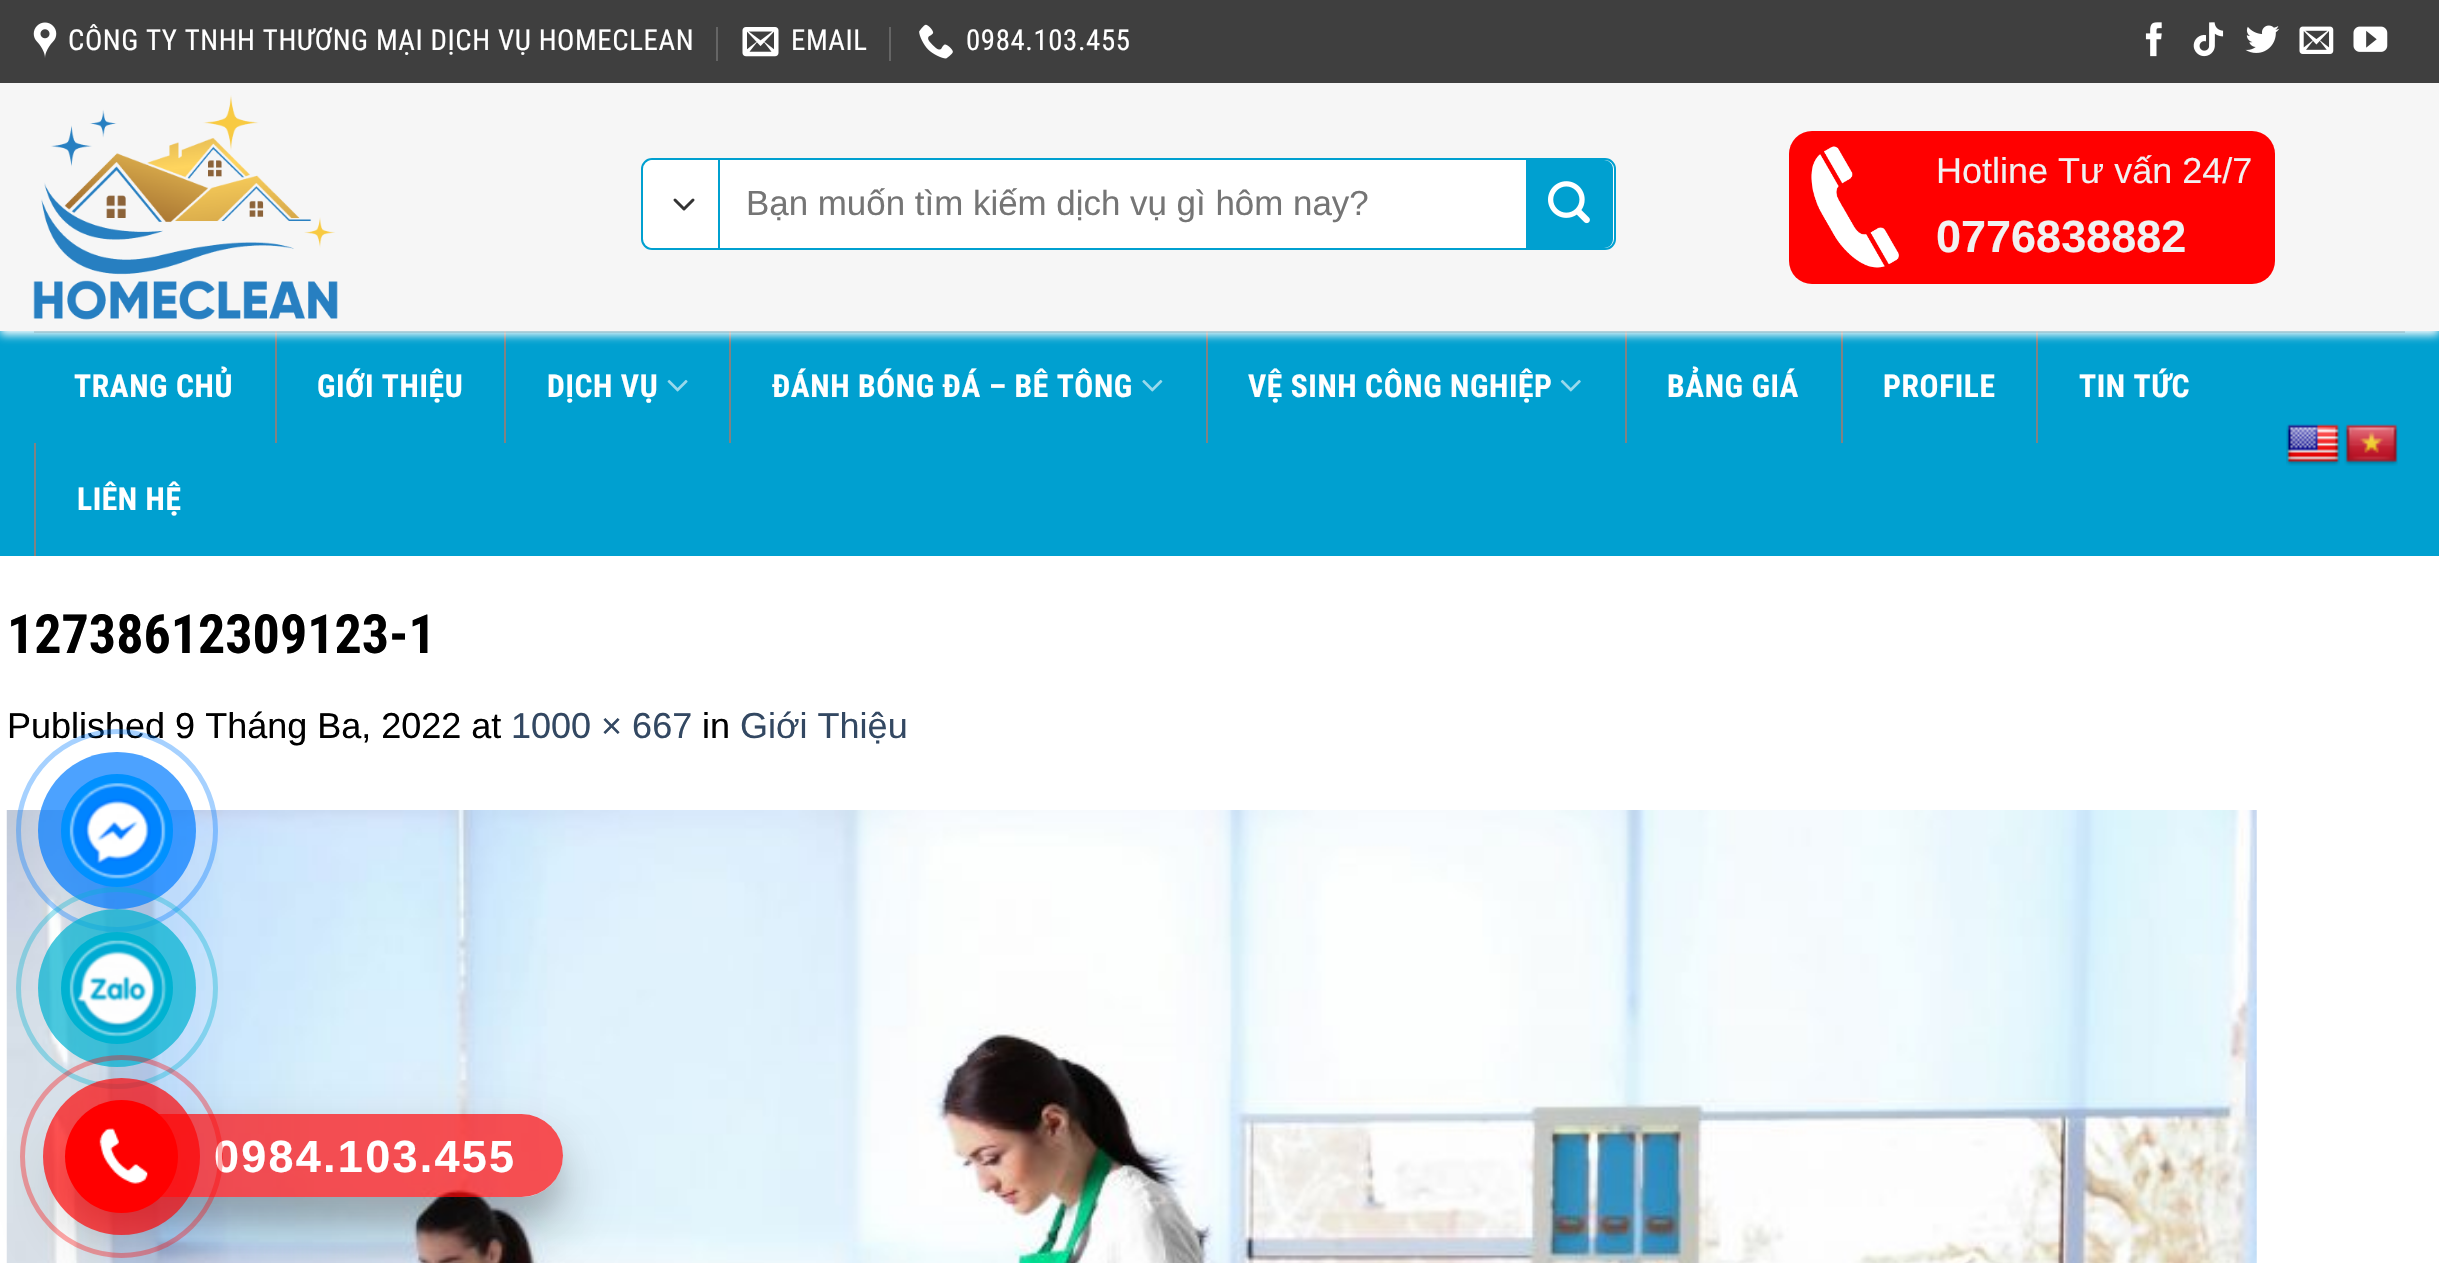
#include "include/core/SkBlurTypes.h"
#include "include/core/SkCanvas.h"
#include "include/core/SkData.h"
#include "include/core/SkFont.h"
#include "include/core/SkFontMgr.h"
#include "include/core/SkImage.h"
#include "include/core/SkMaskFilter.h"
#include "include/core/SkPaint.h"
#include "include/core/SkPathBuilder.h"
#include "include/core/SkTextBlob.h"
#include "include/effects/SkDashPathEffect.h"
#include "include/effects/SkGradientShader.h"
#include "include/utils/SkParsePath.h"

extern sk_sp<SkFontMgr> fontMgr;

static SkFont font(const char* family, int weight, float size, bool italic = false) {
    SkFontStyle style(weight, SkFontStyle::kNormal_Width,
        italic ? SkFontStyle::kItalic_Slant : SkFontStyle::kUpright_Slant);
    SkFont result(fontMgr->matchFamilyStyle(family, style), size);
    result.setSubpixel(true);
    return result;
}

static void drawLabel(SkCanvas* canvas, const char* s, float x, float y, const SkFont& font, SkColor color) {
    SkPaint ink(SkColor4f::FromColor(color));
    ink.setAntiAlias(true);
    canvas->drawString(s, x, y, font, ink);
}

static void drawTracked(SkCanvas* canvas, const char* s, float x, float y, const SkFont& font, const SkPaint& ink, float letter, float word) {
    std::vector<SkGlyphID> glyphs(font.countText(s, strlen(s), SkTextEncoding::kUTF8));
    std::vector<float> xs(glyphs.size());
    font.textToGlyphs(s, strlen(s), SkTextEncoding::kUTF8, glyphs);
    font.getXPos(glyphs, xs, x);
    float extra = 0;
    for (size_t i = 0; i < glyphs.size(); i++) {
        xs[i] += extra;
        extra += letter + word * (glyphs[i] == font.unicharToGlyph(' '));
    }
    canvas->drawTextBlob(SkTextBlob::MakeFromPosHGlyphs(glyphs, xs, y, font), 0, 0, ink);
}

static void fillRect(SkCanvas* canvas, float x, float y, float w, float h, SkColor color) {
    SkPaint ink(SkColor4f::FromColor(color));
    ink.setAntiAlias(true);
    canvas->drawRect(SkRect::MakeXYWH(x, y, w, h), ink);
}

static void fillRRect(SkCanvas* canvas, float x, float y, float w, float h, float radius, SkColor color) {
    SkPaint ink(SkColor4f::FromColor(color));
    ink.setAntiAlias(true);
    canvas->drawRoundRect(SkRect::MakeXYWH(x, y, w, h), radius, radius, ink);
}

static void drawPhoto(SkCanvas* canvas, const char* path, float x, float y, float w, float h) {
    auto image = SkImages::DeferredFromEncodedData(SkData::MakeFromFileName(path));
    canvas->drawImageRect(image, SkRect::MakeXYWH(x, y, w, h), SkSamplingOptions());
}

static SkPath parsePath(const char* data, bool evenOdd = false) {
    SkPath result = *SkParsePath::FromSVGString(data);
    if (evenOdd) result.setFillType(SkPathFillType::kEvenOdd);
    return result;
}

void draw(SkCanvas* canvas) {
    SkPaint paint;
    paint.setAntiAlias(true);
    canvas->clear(0xFFFFFFFF);
    fillRect(canvas, 0, 331, 2439, 225, 0xFF00A0D0);
    fillRect(canvas, 275, 331, 2, 112, 0xFF828282);
    fillRect(canvas, 504, 331, 2, 112, 0xFF828282);
    fillRect(canvas, 729, 331, 2, 112, 0xFF828282);
    fillRect(canvas, 1206, 331, 2, 112, 0xFF828282);
    fillRect(canvas, 1625, 331, 2, 112, 0xFF828282);
    fillRect(canvas, 1841, 331, 2, 112, 0xFF828282);
    fillRect(canvas, 2036, 331, 2, 112, 0xFF828282);
    paint.setColor(0xFFFFFFFF);
    paint.setMaskFilter(SkMaskFilter::MakeBlur(kNormal_SkBlurStyle, 4.5f));
    canvas->drawRect(SkRect::MakeXYWH(0, 88, 2439, 247), paint);
    paint.setMaskFilter(nullptr);
    fillRect(canvas, 0, 0, 2439, 83, 0xFF3F3F3F);
    drawPhoto(canvas, "assets/img1.png", 33, 22, 24, 36);
    SkFont font1 = font("Roboto Condensed", 400, 28.8f);
    drawTracked(canvas, "CÔNG TY TNHH THƯƠNG MẠI DỊCH VỤ HOMECLEAN", 68, 50, font1, paint, 0.6f, 0);
    fillRect(canvas, 716, 27, 2, 34, 0xFF656565);
    drawPhoto(canvas, "assets/img2.png", 742, 27, 37, 30);
    drawTracked(canvas, "EMAIL", 791, 50, font1, paint, 0.6f, 0);
    fillRect(canvas, 889, 27, 2, 34, 0xFF656565);
    drawPhoto(canvas, "assets/img3.png", 919, 24, 34, 35);
    drawTracked(canvas, "0984.103.455", 966, 50, font1, paint, 0.6f, 0);
    drawPhoto(canvas, "assets/img4.png", 2145, 22, 17, 35);
    drawPhoto(canvas, "assets/img5.png", 2193, 22, 31, 35);
    drawPhoto(canvas, "assets/img6.png", 2245, 25, 35, 28);
    drawPhoto(canvas, "assets/img7.png", 2299, 26, 35, 28);
    drawPhoto(canvas, "assets/img8.png", 2353, 26, 35, 26);
    fillRect(canvas, 0, 83, 2439, 248, 0xFFF6F6F6);
    drawPhoto(canvas, "assets/img9.png", 33, 95, 305, 225);
    canvas->drawRoundRect(SkRect::MakeXYWH(642, 159, 973, 90), 10, 10, paint);
    paint.setStroke(true);
    paint.setStrokeWidth(2);
    paint.setColor(0xFF00A0D0);
    canvas->drawRoundRect(SkRect::MakeXYWH(642, 159, 973, 90), 10, 10, paint);
    paint.setStroke(false);
    paint.setColor(0xFFFFFFFF);
    canvas->drawPath(parsePath("M653 160H718V248H653C648 248 644 244 644 239V169C644 164 648 160 653 160Z"), paint);
    paint.setStroke(true);
    paint.setStrokeWidth(3);
    paint.setStrokeCap(SkPaint::kRound_Cap);
    paint.setStrokeJoin(SkPaint::kRound_Join);
    paint.setColor(0xFF333333);
    canvas->drawPath(parsePath("M675 200L684 209L693 200"), paint);
    fillRect(canvas, 718, 160, 2, 88, 0xFF00A0D0);
    SkFont font2 = font("Liberation Sans", 400, 34.9f);
    drawLabel(canvas, "Bạn muốn tìm kiếm dịch vụ gì hôm nay?", 746, 215, font2, 0xFF757575);
    paint.setStroke(false);
    paint.setColor(0xFF00A0D0);
    canvas->drawPath(parsePath("M1526 160H1604C1609 160 1613 164 1613 169V239C1613 244 1609 248 1604 248H1526Z"), paint);
    drawPhoto(canvas, "assets/img10.png", 1548, 181, 42, 43);
    fillRRect(canvas, 1789, 131, 486, 153, 23, 0xFFFF0000);
    drawPhoto(canvas, "assets/img11.png", 1811, 146, 88, 122);
    SkFont font3 = font("Liberation Sans", 400, 36);
    drawLabel(canvas, "Hotline Tư vấn 24/7", 1936, 183, font3, 0xFFF1F1F1);
    SkFont font4 = font("Liberation Sans", 700, 45);
    drawLabel(canvas, "0776838882", 1936, 252, font4, 0xFFF1F1F1);
    fillRect(canvas, 34, 331, 2371, 2, 0x1A000000);
    SkFont font5 = font("Roboto Condensed", 700, 31.5f);
    paint.setColor(0xFFFFFFFF);
    drawTracked(canvas, "TRANG CHỦ", 74, 397, font5, paint, 0.6f, 0);
    drawTracked(canvas, "GIỚI THIỆU", 317, 397, font5, paint, 0.6f, 0);
    drawTracked(canvas, "DỊCH VỤ", 547, 397, font5, paint, 0.6f, 0);
    drawPhoto(canvas, "assets/img12.png", 667, 379, 21, 13);
    drawTracked(canvas, "ĐÁNH BÓNG ĐÁ – BÊ TÔNG", 772, 397, font5, paint, 0.6f, 0);
    drawPhoto(canvas, "assets/img13.png", 1142, 379, 21, 13);
    drawTracked(canvas, "VỆ SINH CÔNG NGHIỆP", 1248, 397, font5, paint, 0.6f, 0);
    drawPhoto(canvas, "assets/img14.png", 1560, 379, 21, 13);
    drawTracked(canvas, "BẢNG GIÁ", 1667, 397, font5, paint, 0.6f, 0);
    drawTracked(canvas, "PROFILE", 1883, 397, font5, paint, 0.6f, 0);
    drawTracked(canvas, "TIN TỨC", 2079, 397, font5, paint, 0.6f, 0);
    fillRect(canvas, 34, 443, 2, 113, 0xFF828282);
    drawTracked(canvas, "LIÊN HỆ", 77, 510, font5, paint, 0.6f, 0);
    drawPhoto(canvas, "assets/img15.png", 2286, 424, 54, 42);
    drawPhoto(canvas, "assets/img16.png", 2344, 424, 54, 42);
    SkFont font6 = font("Roboto Condensed", 700, 54);
    drawLabel(canvas, "12738612309123-1", 7, 653, font6, 0xFF000000);
    drawLabel(canvas, "Published 9 Tháng Ba, 2022 at", 7, 738, font3, 0xFF000000);
    drawLabel(canvas, "1000 × 667", 511, 738, font3, 0xFF334862);
    drawLabel(canvas, "in", 702, 738, font3, 0xFF000000);
    drawLabel(canvas, "Giới Thiệu", 740, 738, font3, 0xFF334862);
    drawPhoto(canvas, "assets/img17.png", 6, 810, 2251, 453);
    paint.setStroke(true);
    paint.setStrokeWidth(5);
    paint.setStrokeCap(SkPaint::kButt_Cap);
    paint.setStrokeJoin(SkPaint::kMiter_Join);
    paint.setColor(0x59007BFF);
    canvas->drawRoundRect(SkRect::MakeXYWH(18.5f, 731.5f, 197, 198), 98.5f, 98.5f, paint);
    fillRRect(canvas, 38, 752, 158, 157, 78.5f, 0xB3007BFF);
    fillRRect(canvas, 61, 774, 112, 113, 56, 0xFF0091FF);
    drawPhoto(canvas, "assets/img18.png", 69, 783, 97, 96);
    canvas->save();
    canvas->clipPath(parsePath("M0 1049H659V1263H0ZM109.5 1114H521.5C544.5 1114 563 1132.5 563 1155.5C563 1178.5 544.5 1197 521.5 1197H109.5C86.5 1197 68 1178.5 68 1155.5C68 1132.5 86.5 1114 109.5 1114Z", true), true);
    paint.setStroke(false);
    paint.setColor(0x40000000);
    paint.setMaskFilter(SkMaskFilter::MakeBlur(kNormal_SkBlurStyle, 31.5f));
    canvas->drawRoundRect(SkRect::MakeXYWH(68, 1145, 495, 84), 42, 42, paint);
    paint.setMaskFilter(nullptr);
    canvas->restore();
    paint.setStroke(true);
    paint.setColor(0x5900B2D1);
    canvas->drawCircle(117, 988, 98.5f, paint);
    paint.setStroke(false);
    paint.setColor(0xB500B2D1);
    canvas->drawCircle(117, 988, 79, paint);
    paint.setColor(0xFF00B2D1);
    canvas->drawCircle(117, 988, 56, paint);
    drawPhoto(canvas, "assets/img19.png", 69, 940, 98, 97);
    canvas->save();
    canvas->clipPath(parsePath("M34 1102H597V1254H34ZM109.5 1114H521.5C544.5 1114 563 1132.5 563 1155.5C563 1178.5 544.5 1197 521.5 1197H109.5C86.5 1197 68 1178.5 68 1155.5C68 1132.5 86.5 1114 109.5 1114Z", true), true);
    paint.setColor(0x1A000000);
    paint.setMaskFilter(SkMaskFilter::MakeBlur(kNormal_SkBlurStyle, 11));
    canvas->drawRoundRect(SkRect::MakeXYWH(68, 1136, 495, 84), 42, 42, paint);
    paint.setMaskFilter(nullptr);
    canvas->restore();
    fillRRect(canvas, 68, 1114, 495, 83, 41.5f, 0xADFF0000);
    paint.setColor(0xFFFFFFFF);
    drawTracked(canvas, "0984.103.455", 214, 1172, font4, paint, 2.25f, 0);
    paint.setStroke(true);
    paint.setColor(0x57FF0000);
    canvas->drawCircle(121.5f, 1156.5f, 99, paint);
    paint.setStroke(false);
    paint.setColor(0xADFF0000);
    canvas->drawCircle(121.5f, 1156.5f, 78.5f, paint);
    paint.setColor(0xFFFF0000);
    canvas->drawCircle(121.5f, 1156.5f, 56.5f, paint);
    drawPhoto(canvas, "assets/img20.png", 99, 1128, 49, 56);
}
